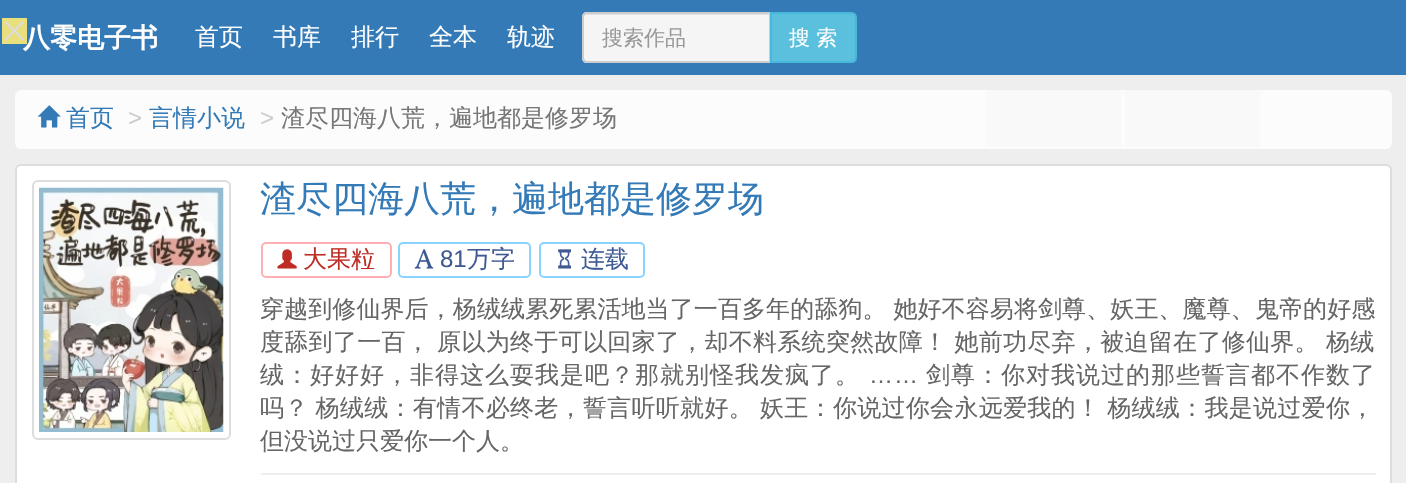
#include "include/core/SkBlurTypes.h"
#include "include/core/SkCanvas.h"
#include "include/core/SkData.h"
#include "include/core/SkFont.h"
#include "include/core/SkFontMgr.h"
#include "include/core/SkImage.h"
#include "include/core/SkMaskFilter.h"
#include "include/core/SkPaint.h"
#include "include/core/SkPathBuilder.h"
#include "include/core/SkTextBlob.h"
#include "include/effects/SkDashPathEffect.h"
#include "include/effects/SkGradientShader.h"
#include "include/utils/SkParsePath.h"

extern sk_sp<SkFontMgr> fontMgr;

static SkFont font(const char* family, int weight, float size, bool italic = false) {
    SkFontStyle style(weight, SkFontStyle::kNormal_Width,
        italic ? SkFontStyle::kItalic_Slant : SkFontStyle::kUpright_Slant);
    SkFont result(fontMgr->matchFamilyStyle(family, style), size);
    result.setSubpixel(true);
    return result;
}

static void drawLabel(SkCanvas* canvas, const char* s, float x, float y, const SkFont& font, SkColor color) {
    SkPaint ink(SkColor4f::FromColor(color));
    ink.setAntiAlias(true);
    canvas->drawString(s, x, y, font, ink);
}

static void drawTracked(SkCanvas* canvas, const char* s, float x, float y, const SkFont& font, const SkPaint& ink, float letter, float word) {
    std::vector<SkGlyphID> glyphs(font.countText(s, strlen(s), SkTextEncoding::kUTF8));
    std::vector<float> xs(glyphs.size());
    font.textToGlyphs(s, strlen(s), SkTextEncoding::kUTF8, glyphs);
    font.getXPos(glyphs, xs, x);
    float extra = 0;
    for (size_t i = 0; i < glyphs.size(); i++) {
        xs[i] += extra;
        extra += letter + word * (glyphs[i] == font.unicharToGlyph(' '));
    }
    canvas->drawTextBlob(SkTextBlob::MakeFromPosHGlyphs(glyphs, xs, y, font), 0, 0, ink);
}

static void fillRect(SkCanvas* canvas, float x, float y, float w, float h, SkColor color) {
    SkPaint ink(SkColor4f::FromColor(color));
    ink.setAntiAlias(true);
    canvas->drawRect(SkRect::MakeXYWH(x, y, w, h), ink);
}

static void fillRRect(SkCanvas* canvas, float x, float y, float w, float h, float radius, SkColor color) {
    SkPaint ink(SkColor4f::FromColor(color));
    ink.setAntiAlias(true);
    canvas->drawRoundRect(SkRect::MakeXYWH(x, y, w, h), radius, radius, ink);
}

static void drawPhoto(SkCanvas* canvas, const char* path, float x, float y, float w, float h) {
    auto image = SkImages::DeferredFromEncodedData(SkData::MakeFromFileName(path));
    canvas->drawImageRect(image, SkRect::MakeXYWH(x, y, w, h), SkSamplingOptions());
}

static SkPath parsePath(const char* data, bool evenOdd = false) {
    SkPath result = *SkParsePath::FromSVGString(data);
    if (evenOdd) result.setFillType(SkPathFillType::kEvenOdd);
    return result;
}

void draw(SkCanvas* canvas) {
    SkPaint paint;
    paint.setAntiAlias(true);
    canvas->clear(0xFFEEEEEE);
    fillRect(canvas, 0, 0, 1406, 75, 0xFF337AB7);
    SkFont font1 = font("WenQuanYi Zen Hei", 700, 27);
    drawLabel(canvas, "八零电子书", 23, 47, font1, 0xFFFFFFFF);
    fillRect(canvas, 2, 18, 25, 26, 0xFFEADF7D);
    paint.setColor(0xFFDDDDDD);
    canvas->drawPath(parsePath("M6 21L24 39L22.5 40.5L4.5 22.5Z"), paint);
    canvas->drawPath(parsePath("M4.5 39L22.5 21L24 22.5L6 40.5Z"), paint);
    SkFont font2 = font("WenQuanYi Zen Hei", 500, 24);
    drawLabel(canvas, "首页", 195, 45, font2, 0xFFFFFFFF);
    drawLabel(canvas, "书库", 273, 45, font2, 0xFFFFFFFF);
    drawLabel(canvas, "排行", 351, 45, font2, 0xFFFFFFFF);
    drawLabel(canvas, "全本", 429, 45, font2, 0xFFFFFFFF);
    drawLabel(canvas, "轨迹", 507, 45, font2, 0xFFFFFFFF);
    paint.setColor(0xFFF5F5F5);
    canvas->drawPath(parsePath("M587 12H771V63H587C584 63 582 61 582 58V17C582 14 584 12 587 12Z"), paint);
    paint.setColor(0xFFE3E3E3);
    canvas->drawPath(parsePath("M586 15H770V14H587C585 14 584 16 584 18C584 16 585 15 586 15Z"), paint);
    paint.setStroke(true);
    paint.setStrokeWidth(2);
    paint.setColor(0xFFCCCCCC);
    canvas->drawPath(parsePath("M587 13H770V62H587C585 62 583 60 583 58V17C583 15 585 13 587 13Z"), paint);
    SkFont font3 = font("WenQuanYi Zen Hei", 500, 21);
    drawLabel(canvas, "搜索作品", 602, 45, font3, 0xFF999999);
    paint.setStroke(false);
    paint.setColor(0xFF5BC0DE);
    canvas->drawPath(parsePath("M771 13H851C854 13 856 15 856 18V57C856 60 854 62 851 62H771Z"), paint);
    paint.setStroke(true);
    paint.setColor(0xFF46B8DA);
    canvas->drawPath(parsePath("M771 13H851C854 13 856 15 856 18V57C856 60 854 62 851 62H771Z"), paint);
    drawLabel(canvas, "搜 索", 789, 45, font3, 0xFFFFFFFF);
    fillRRect(canvas, 15, 90, 1377, 59, 6, 0xFFFCFCFC);
    fillRect(canvas, 1125, 90, 135, 57, 0xFFF9F9F9);
    fillRect(canvas, 986, 90, 135, 57, 0xFFF9F9F9);
    drawPhoto(canvas, "assets/img1.png", 37, 105, 24, 23);
    drawLabel(canvas, "首页", 66, 126, font2, 0xFF337AB7);
    SkFont font4 = font("Liberation Sans", 400, 24);
    drawLabel(canvas, ">", 128, 126, font4, 0xFFCCCCCC);
    drawLabel(canvas, "言情小说", 149, 126, font2, 0xFF337AB7);
    drawLabel(canvas, ">", 260, 126, font4, 0xFFCCCCCC);
    drawLabel(canvas, "渣尽四海八荒，遍地都是修罗场", 281, 126, font2, 0xFF777777);
    paint.setStroke(false);
    paint.setColor(0xFFFFFFFF);
    canvas->drawRoundRect(SkRect::MakeXYWH(16, 165, 1375, 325), 5, 5, paint);
    paint.setStroke(true);
    paint.setColor(0xFFDDDDDD);
    canvas->drawRoundRect(SkRect::MakeXYWH(16, 165, 1375, 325), 5, 5, paint);
    canvas->drawRoundRect(SkRect::MakeXYWH(33, 181, 197, 258), 5, 5, paint);
    drawPhoto(canvas, "assets/img2.png", 39, 187, 185, 245);
    SkFont font5 = font("WenQuanYi Zen Hei", 500, 36);
    drawLabel(canvas, "渣尽四海八荒，遍地都是修罗场", 260, 211, font5, 0xFF337AB7);
    paint.setColor(0xFFFFB0B4);
    canvas->drawRoundRect(SkRect::MakeXYWH(262, 243, 129, 34), 4, 4, paint);
    drawPhoto(canvas, "assets/img3.png", 277, 249, 20, 20);
    drawLabel(canvas, "大果粒", 303, 267, font2, 0xFFBF2C24);
    paint.setColor(0xFF89D4FF);
    canvas->drawRoundRect(SkRect::MakeXYWH(399, 243, 131, 34), 4, 4, paint);
    drawPhoto(canvas, "assets/img4.png", 414, 249, 20, 20);
    drawLabel(canvas, "81", 440, 267, font4, 0xFF3F5A93);
    drawLabel(canvas, "万字", 467, 267, font2, 0xFF3F5A93);
    canvas->drawRoundRect(SkRect::MakeXYWH(540, 243, 104, 34), 4, 4, paint);
    drawPhoto(canvas, "assets/img5.png", 558, 249, 13, 20);
    drawLabel(canvas, "连载", 581, 267, font2, 0xFF3F5A93);
    paint.setStroke(false);
    paint.setColor(0xFF666666);
    drawTracked(canvas, "穿越到修仙界后，杨绒绒累死累活地当了一百多年的舔狗。 她好不容易将剑尊、妖王、魔尊、鬼帝的好感", 260, 317, font2, paint, 0.1f, -0.5f);
    drawTracked(canvas, "度舔到了一百， 原以为终于可以回家了，却不料系统突然故障！ 她前功尽弃，被迫留在了修仙界。 杨绒", 260, 350, font2, paint, 0.3f, -0.5f);
    drawTracked(canvas, "绒：好好好，非得这么耍我是吧？那就别怪我发疯了。", 260, 383, font2, paint, 1, 0);
    drawTracked(canvas, "……", 869, 383, font4, paint, 1, 0);
    drawTracked(canvas, "剑尊：你对我说过的那些誓言都不作数了", 926, 383, font2, paint, 1, 0);
    drawTracked(canvas, "吗？ 杨绒绒：有情不必终老，誓言听听就好。 妖王：你说过你会永远爱我的！ 杨绒绒：我是说过爱你，", 260, 416, font2, paint, 0.3f, -0.5f);
    drawLabel(canvas, "但没说过只爱你一个人。", 260, 449, font2, 0xFF666666);
    fillRect(canvas, 261, 473, 1115, 2, 0xFFEEEEEE);
}
